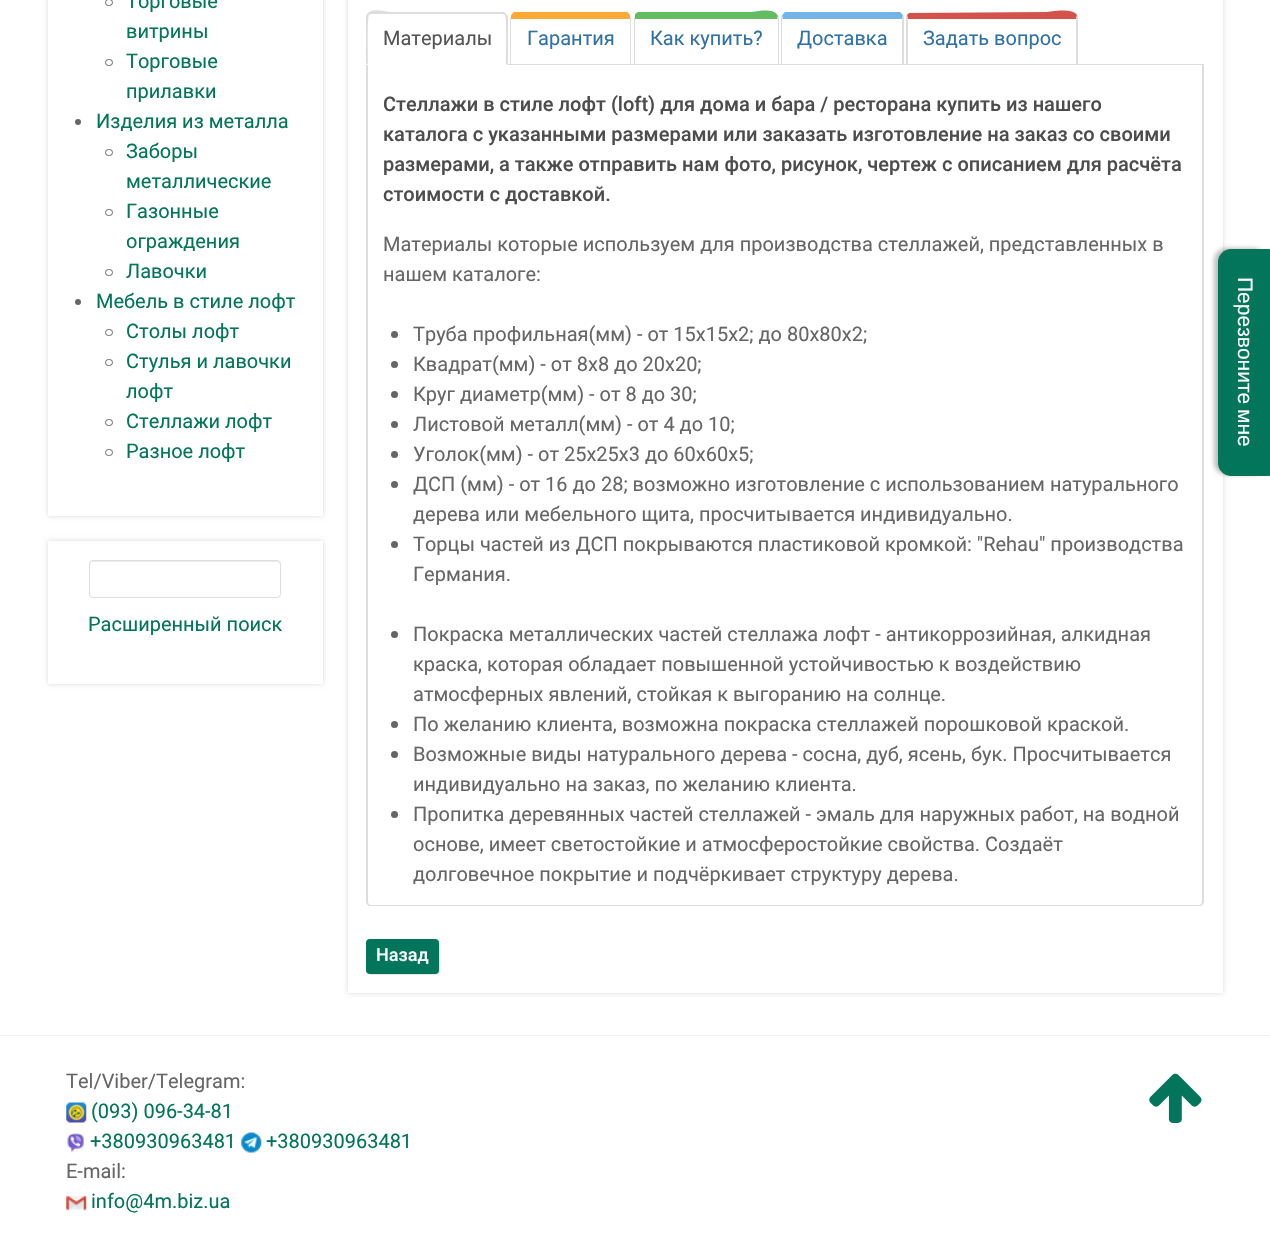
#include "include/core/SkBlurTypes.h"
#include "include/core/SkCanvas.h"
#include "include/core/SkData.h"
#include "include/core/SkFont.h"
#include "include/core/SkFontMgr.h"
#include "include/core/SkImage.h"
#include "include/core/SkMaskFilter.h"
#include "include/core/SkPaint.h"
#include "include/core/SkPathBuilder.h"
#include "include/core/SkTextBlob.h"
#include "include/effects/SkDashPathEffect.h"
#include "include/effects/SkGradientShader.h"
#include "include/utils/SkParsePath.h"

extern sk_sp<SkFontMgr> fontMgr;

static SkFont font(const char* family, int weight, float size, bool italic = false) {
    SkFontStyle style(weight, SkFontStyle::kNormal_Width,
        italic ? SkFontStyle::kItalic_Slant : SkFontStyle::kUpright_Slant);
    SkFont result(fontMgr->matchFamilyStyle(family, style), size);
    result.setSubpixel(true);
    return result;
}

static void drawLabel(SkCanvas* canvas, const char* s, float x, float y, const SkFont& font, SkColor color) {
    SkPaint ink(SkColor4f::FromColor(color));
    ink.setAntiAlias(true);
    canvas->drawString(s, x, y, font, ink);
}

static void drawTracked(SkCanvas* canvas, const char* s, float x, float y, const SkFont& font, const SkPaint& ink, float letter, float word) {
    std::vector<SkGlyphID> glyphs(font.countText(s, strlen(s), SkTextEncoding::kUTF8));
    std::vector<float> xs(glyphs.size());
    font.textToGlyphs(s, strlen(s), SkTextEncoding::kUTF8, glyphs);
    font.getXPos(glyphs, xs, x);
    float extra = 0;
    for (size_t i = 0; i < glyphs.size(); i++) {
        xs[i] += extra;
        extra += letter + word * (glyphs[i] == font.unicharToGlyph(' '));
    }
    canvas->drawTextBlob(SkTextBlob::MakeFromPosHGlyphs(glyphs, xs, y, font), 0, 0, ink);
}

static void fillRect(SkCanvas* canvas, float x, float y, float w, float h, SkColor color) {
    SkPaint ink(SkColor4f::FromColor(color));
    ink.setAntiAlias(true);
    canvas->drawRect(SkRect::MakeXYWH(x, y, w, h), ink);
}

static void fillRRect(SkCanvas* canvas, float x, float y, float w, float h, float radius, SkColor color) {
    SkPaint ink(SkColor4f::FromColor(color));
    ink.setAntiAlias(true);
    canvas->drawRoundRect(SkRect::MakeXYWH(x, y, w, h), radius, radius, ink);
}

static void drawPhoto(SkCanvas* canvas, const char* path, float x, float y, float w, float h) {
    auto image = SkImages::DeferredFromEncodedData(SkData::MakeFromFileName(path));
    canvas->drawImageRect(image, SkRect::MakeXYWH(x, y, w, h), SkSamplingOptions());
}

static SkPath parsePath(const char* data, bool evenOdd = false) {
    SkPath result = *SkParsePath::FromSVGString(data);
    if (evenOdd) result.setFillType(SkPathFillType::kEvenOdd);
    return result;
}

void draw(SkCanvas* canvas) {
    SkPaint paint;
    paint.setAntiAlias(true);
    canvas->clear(0xFFFFFFFF);
    canvas->save();
    canvas->clipPath(parsePath("M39 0H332V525H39ZM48-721H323V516H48Z", true), true);
    paint.setColor(0x26000000);
    paint.setMaskFilter(SkMaskFilter::MakeBlur(kNormal_SkBlurStyle, 2.5f));
    canvas->drawRect(SkRect::MakeXYWH(48, -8, 275, 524), paint);
    paint.setMaskFilter(nullptr);
    canvas->restore();
    paint.setStroke(true);
    paint.setStrokeWidth(1);
    paint.setColor(0xFF666666);
    canvas->drawRoundRect(SkRect::MakeXYWH(105.5f, -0.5f, 7, 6), 3, 3, paint);
    SkFont font1 = font("Roboto", 400, 20);
    drawLabel(canvas, "Торговые", 126, 8, font1, 0xFF02755B);
    drawLabel(canvas, "витрины", 126, 38, font1, 0xFF02755B);
    canvas->drawRoundRect(SkRect::MakeXYWH(105.5f, 59.5f, 7, 6), 3, 3, paint);
    drawLabel(canvas, "Торговые", 126, 68, font1, 0xFF02755B);
    drawLabel(canvas, "прилавки", 126, 98, font1, 0xFF02755B);
    paint.setStroke(false);
    canvas->drawCircle(78, 122, 3, paint);
    drawLabel(canvas, "Изделия из металла", 96, 128, font1, 0xFF02755B);
    paint.setStroke(true);
    canvas->drawRoundRect(SkRect::MakeXYWH(105.5f, 149.5f, 7, 6), 3, 3, paint);
    drawLabel(canvas, "Заборы", 126, 158, font1, 0xFF02755B);
    drawLabel(canvas, "металлические", 126, 188, font1, 0xFF02755B);
    canvas->drawRoundRect(SkRect::MakeXYWH(105.5f, 209.5f, 7, 6), 3, 3, paint);
    drawLabel(canvas, "Газонные", 126, 218, font1, 0xFF02755B);
    drawLabel(canvas, "ограждения", 126, 248, font1, 0xFF02755B);
    canvas->drawRoundRect(SkRect::MakeXYWH(105.5f, 269.5f, 7, 6), 3, 3, paint);
    drawLabel(canvas, "Лавочки", 126, 278, font1, 0xFF02755B);
    paint.setStroke(false);
    canvas->drawCircle(78, 302, 3, paint);
    drawLabel(canvas, "Мебель в стиле лофт", 96, 308, font1, 0xFF02755B);
    paint.setStroke(true);
    canvas->drawRoundRect(SkRect::MakeXYWH(105.5f, 329.5f, 7, 6), 3, 3, paint);
    drawLabel(canvas, "Столы лофт", 126, 338, font1, 0xFF02755B);
    canvas->drawRoundRect(SkRect::MakeXYWH(105.5f, 359.5f, 7, 6), 3, 3, paint);
    drawLabel(canvas, "Стулья и лавочки", 126, 368, font1, 0xFF02755B);
    drawLabel(canvas, "лофт", 126, 398, font1, 0xFF02755B);
    canvas->drawRoundRect(SkRect::MakeXYWH(105.5f, 419.5f, 7, 6), 3, 3, paint);
    drawLabel(canvas, "Стеллажи лофт", 126, 428, font1, 0xFF02755B);
    canvas->drawRoundRect(SkRect::MakeXYWH(105.5f, 449.5f, 7, 6), 3, 3, paint);
    drawLabel(canvas, "Разное лофт", 126, 458, font1, 0xFF02755B);
    canvas->save();
    canvas->clipPath(parsePath("M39 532H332V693H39ZM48 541H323V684H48Z", true), true);
    paint.setStroke(false);
    paint.setColor(0x26000000);
    paint.setMaskFilter(SkMaskFilter::MakeBlur(kNormal_SkBlurStyle, 2.5f));
    canvas->drawRect(SkRect::MakeXYWH(48, 541, 275, 143), paint);
    paint.setMaskFilter(nullptr);
    canvas->restore();
    paint.setColor(0xFFECECEC);
    canvas->drawPath(parsePath("M92 562H278C279 562 280 564 280 565C280 563 280 561 278 561H92C90 561 90 563 90 565C90 564 91 562 92 562Z"), paint);
    paint.setStroke(true);
    paint.setColor(0xFFDDDDDD);
    canvas->drawRoundRect(SkRect::MakeXYWH(89.5f, 560.5f, 191, 37), 3.5f, 3.5f, paint);
    drawLabel(canvas, "Расширенный поиск", 88, 631, font1, 0xFF02755B);
    canvas->save();
    canvas->clipPath(parsePath("M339 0H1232V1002H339ZM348-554H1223V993H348Z", true), true);
    paint.setStroke(false);
    paint.setColor(0x26000000);
    paint.setMaskFilter(SkMaskFilter::MakeBlur(kNormal_SkBlurStyle, 2.5f));
    canvas->drawRect(SkRect::MakeXYWH(348, -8, 875, 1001), paint);
    paint.setMaskFilter(nullptr);
    canvas->restore();
    fillRect(canvas, 508, 64, 696, 1, 0xFFDDDDDD);
    paint.setColor(0xFFDDDDDD);
    canvas->drawPath(parsePath("M371 14L369 15L367 14C373 7 383 12 392 12H504L506 14L505 15L502 14Z"), paint);
    canvas->drawPath(parsePath("M508 16V65L506 64C506 58 507 17 505 15L506 14Z"), paint);
    canvas->drawPath(parsePath("M366 65V16L367 14L369 15C367 17 368 57 368 63Z"), paint);
    drawLabel(canvas, "Материалы", 383, 45, font1, 0xFF555555);
    paint.setColor(0xFFFAA937);
    canvas->drawPath(parsePath("M511 16C511 14 513 13 514 12H627C629 13 630 15 630 16V19H511Z"), paint);
    paint.setColor(0xFFDDDDDD);
    canvas->drawPath(parsePath("M630 16L631 19V65L630 64V19Z"), paint);
    canvas->drawPath(parsePath("M510 65L511 64V19V16L510 19Z"), paint);
    drawLabel(canvas, "Гарантия", 527, 45, font1, 0xFF3071A9);
    paint.setColor(0xFF62BC62);
    canvas->drawPath(parsePath("M635 16V14L638 12H752C754 12 774 7 778 16L777 19H635Z"), paint);
    paint.setColor(0xFFDDDDDD);
    canvas->drawPath(parsePath("M779 17V65L778 64V19H777L778 16Z"), paint);
    canvas->drawPath(parsePath("M634 65V19L635 16V19V64Z"), paint);
    drawLabel(canvas, "Как купить?", 650, 45, font1, 0xFF3071A9);
    paint.setColor(0xFF74B4E8);
    canvas->drawPath(parsePath("M782 16C782 15 784 13 785 12H900L903 15L902 21V19H783Z"), paint);
    paint.setColor(0xFFDDDDDD);
    canvas->drawPath(parsePath("M904 17V65L902 63V21L903 15Z"), paint);
    canvas->drawPath(parsePath("M904 65L902 63V64H782L781 65Z"), paint);
    canvas->drawPath(parsePath("M781 65V17L782 16L783 19H782V64Z"), paint);
    drawLabel(canvas, "Доставка", 797, 45, font1, 0xFF3071A9);
    paint.setColor(0xFFD3534C);
    canvas->drawPath(parsePath("M907 15L909 13L1046 12C1049 12 1072 7 1077 15L1076 20V19H908V21Z"), paint);
    paint.setColor(0xFFDDDDDD);
    canvas->drawPath(parsePath("M1078 16V65L1076 64V20L1077 15Z"), paint);
    canvas->drawPath(parsePath("M1078 65L1076 64H908V63L906 65Z"), paint);
    canvas->drawPath(parsePath("M906 65V17L907 15L908 21V63Z"), paint);
    drawLabel(canvas, "Задать вопрос", 923, 45, font1, 0xFF3071A9);
    canvas->drawPath(parsePath("M366 65H1204V901C1204 904 1202 906 1199 906H371C368 906 366 904 366 901ZM368 65H1202V901C1202 903 1201 905 1199 905H371C369 905 368 903 368 901Z", true), paint);
    SkFont font2 = font("Roboto", 500, 20);
    drawLabel(canvas, "Стеллажи в стиле лофт (loft) для дома и бара / ресторана купить из нашего", 383, 111, font2, 0xFF4D4D4D);
    drawLabel(canvas, "каталога с указанными размерами или заказать изготовление на заказ со своими", 383, 141, font2, 0xFF4D4D4D);
    drawLabel(canvas, "размерами, а также отправить нам фото, рисунок, чертеж с описанием для расчёта", 383, 171, font2, 0xFF4D4D4D);
    drawLabel(canvas, "стоимости с доставкой.", 383, 201, font2, 0xFF4D4D4D);
    drawLabel(canvas, "Материалы которые используем для производства стеллажей, представленных в", 383, 251, font1, 0xFF666666);
    drawLabel(canvas, "нашем каталоге:", 383, 281, font1, 0xFF666666);
    paint.setColor(0xFF666666);
    canvas->drawCircle(394.5f, 334.5f, 3.5f, paint);
    drawLabel(canvas, "Труба профильная(мм) - от 15x15x2; до 80x80x2;", 413, 341, font1, 0xFF666666);
    canvas->drawCircle(394.5f, 364.5f, 3.5f, paint);
    drawLabel(canvas, "Квадрат(мм) - от 8x8 до 20x20;", 413, 371, font1, 0xFF666666);
    canvas->drawCircle(394.5f, 394.5f, 3.5f, paint);
    drawLabel(canvas, "Круг диаметр(мм) - от 8 до 30;", 413, 401, font1, 0xFF666666);
    canvas->drawCircle(394.5f, 424.5f, 3.5f, paint);
    drawLabel(canvas, "Листовой металл(мм) - от 4 до 10;", 413, 431, font1, 0xFF666666);
    canvas->drawCircle(394.5f, 454.5f, 3.5f, paint);
    drawLabel(canvas, "Уголок(мм) - от 25x25x3 до 60x60x5;", 413, 461, font1, 0xFF666666);
    canvas->drawCircle(394.5f, 484.5f, 3.5f, paint);
    drawLabel(canvas, "ДСП (мм) - от 16 до 28; возможно изготовление с использованием натурального", 413, 491, font1, 0xFF666666);
    drawLabel(canvas, "дерева или мебельного щита, просчитывается индивидуально.", 413, 521, font1, 0xFF666666);
    canvas->drawCircle(394.5f, 544.5f, 3.5f, paint);
    drawLabel(canvas, "Торцы частей из ДСП покрываются пластиковой кромкой: \"Rehau\" производства", 413, 551, font1, 0xFF666666);
    drawLabel(canvas, "Германия.", 413, 581, font1, 0xFF666666);
    canvas->drawCircle(394.5f, 634.5f, 3.5f, paint);
    drawLabel(canvas, "Покраска металлических частей стеллажа лофт - антикоррозийная, алкидная", 413, 641, font1, 0xFF666666);
    drawLabel(canvas, "краска, которая обладает повышенной устойчивостью к воздействию", 413, 671, font1, 0xFF666666);
    drawLabel(canvas, "атмосферных явлений, стойкая к выгоранию на солнце.", 413, 701, font1, 0xFF666666);
    canvas->drawCircle(394.5f, 724.5f, 3.5f, paint);
    drawLabel(canvas, "По желанию клиента, возможна покраска стеллажей порошковой краской.", 413, 731, font1, 0xFF666666);
    canvas->drawCircle(394.5f, 754.5f, 3.5f, paint);
    drawLabel(canvas, "Возможные виды натурального дерева - сосна, дуб, ясень, бук. Просчитывается", 413, 761, font1, 0xFF666666);
    drawLabel(canvas, "индивидуально на заказ, по желанию клиента.", 413, 791, font1, 0xFF666666);
    canvas->drawCircle(394.5f, 814.5f, 3.5f, paint);
    drawLabel(canvas, "Пропитка деревянных частей стеллажей - эмаль для наружных работ, на водной", 413, 821, font1, 0xFF666666);
    drawLabel(canvas, "основе, имеет светостойкие и атмосферостойкие свойства. Создаёт", 413, 851, font1, 0xFF666666);
    drawLabel(canvas, "долговечное покрытие и подчёркивает структуру дерева.", 413, 881, font1, 0xFF666666);
    paint.setColor(0x1A000000);
    paint.setMaskFilter(SkMaskFilter::MakeBlur(kNormal_SkBlurStyle, 0.5f));
    canvas->drawRoundRect(SkRect::MakeXYWH(368, 940, 72, 35), 4, 4, paint);
    paint.setMaskFilter(nullptr);
    fillRRect(canvas, 366, 939, 73, 35, 4, 0xFF02755B);
    SkFont font3 = font("Roboto", 500, 18);
    drawLabel(canvas, "Назад", 376, 961, font3, 0xFFFFFFFF);
    paint.setColor(0x40000000);
    paint.setMaskFilter(SkMaskFilter::MakeBlur(kNormal_SkBlurStyle, 2));
    canvas->drawRoundRect(SkRect::MakeXYWH(1214, 248, 52, 227), 13, 13, paint);
    paint.setMaskFilter(nullptr);
    paint.setColor(0xFF02755B);
    canvas->drawPath(parsePath("M1231 249.5H1269.5V475.5H1231C1224 475.5 1218.5 470 1218.5 463V262C1218.5 255 1224 249.5 1231 249.5Z"), paint);
    paint.setStroke(true);
    canvas->drawPath(parsePath("M1231 249.5H1269.5V475.5H1231C1224 475.5 1218.5 470 1218.5 463V262C1218.5 255 1224 249.5 1231 249.5Z"), paint);
    SkFont font4 = font("Liberation Sans", 400, 21);
    paint.setStroke(false);
    paint.setColor(0xFFFFFFFF);
    canvas->save();
    canvas->rotate(90, 1238, 277);
    drawTracked(canvas, "Перезвоните мне", 1238, 277, font4, paint, 0, -1);
    canvas->restore();
    fillRect(canvas, 0, 1035, 1270, 1, 0xFFF2F2F2);
    drawLabel(canvas, "Tel/Viber/Telegram:", 66, 1088, font1, 0xFF666666);
    drawPhoto(canvas, "assets/img1.png", 66, 1102, 21, 21);
    drawLabel(canvas, "(093) 096-34-81", 91, 1118, font1, 0xFF02755B);
    drawPhoto(canvas, "assets/img2.png", 66, 1133, 19, 20);
    drawLabel(canvas, "+380930963481", 90, 1148, font1, 0xFF02755B);
    drawPhoto(canvas, "assets/img3.png", 241, 1132, 21, 21);
    drawLabel(canvas, "+380930963481", 266, 1148, font1, 0xFF02755B);
    drawLabel(canvas, "E-mail:", 66, 1178, font1, 0xFF666666);
    drawPhoto(canvas, "assets/img4.png", 66, 1195, 21, 16);
    drawLabel(canvas, "info@4m.biz.ua", 91, 1208, font1, 0xFF02755B);
    drawPhoto(canvas, "assets/img5.png", 1149, 1073, 53, 51);
}
